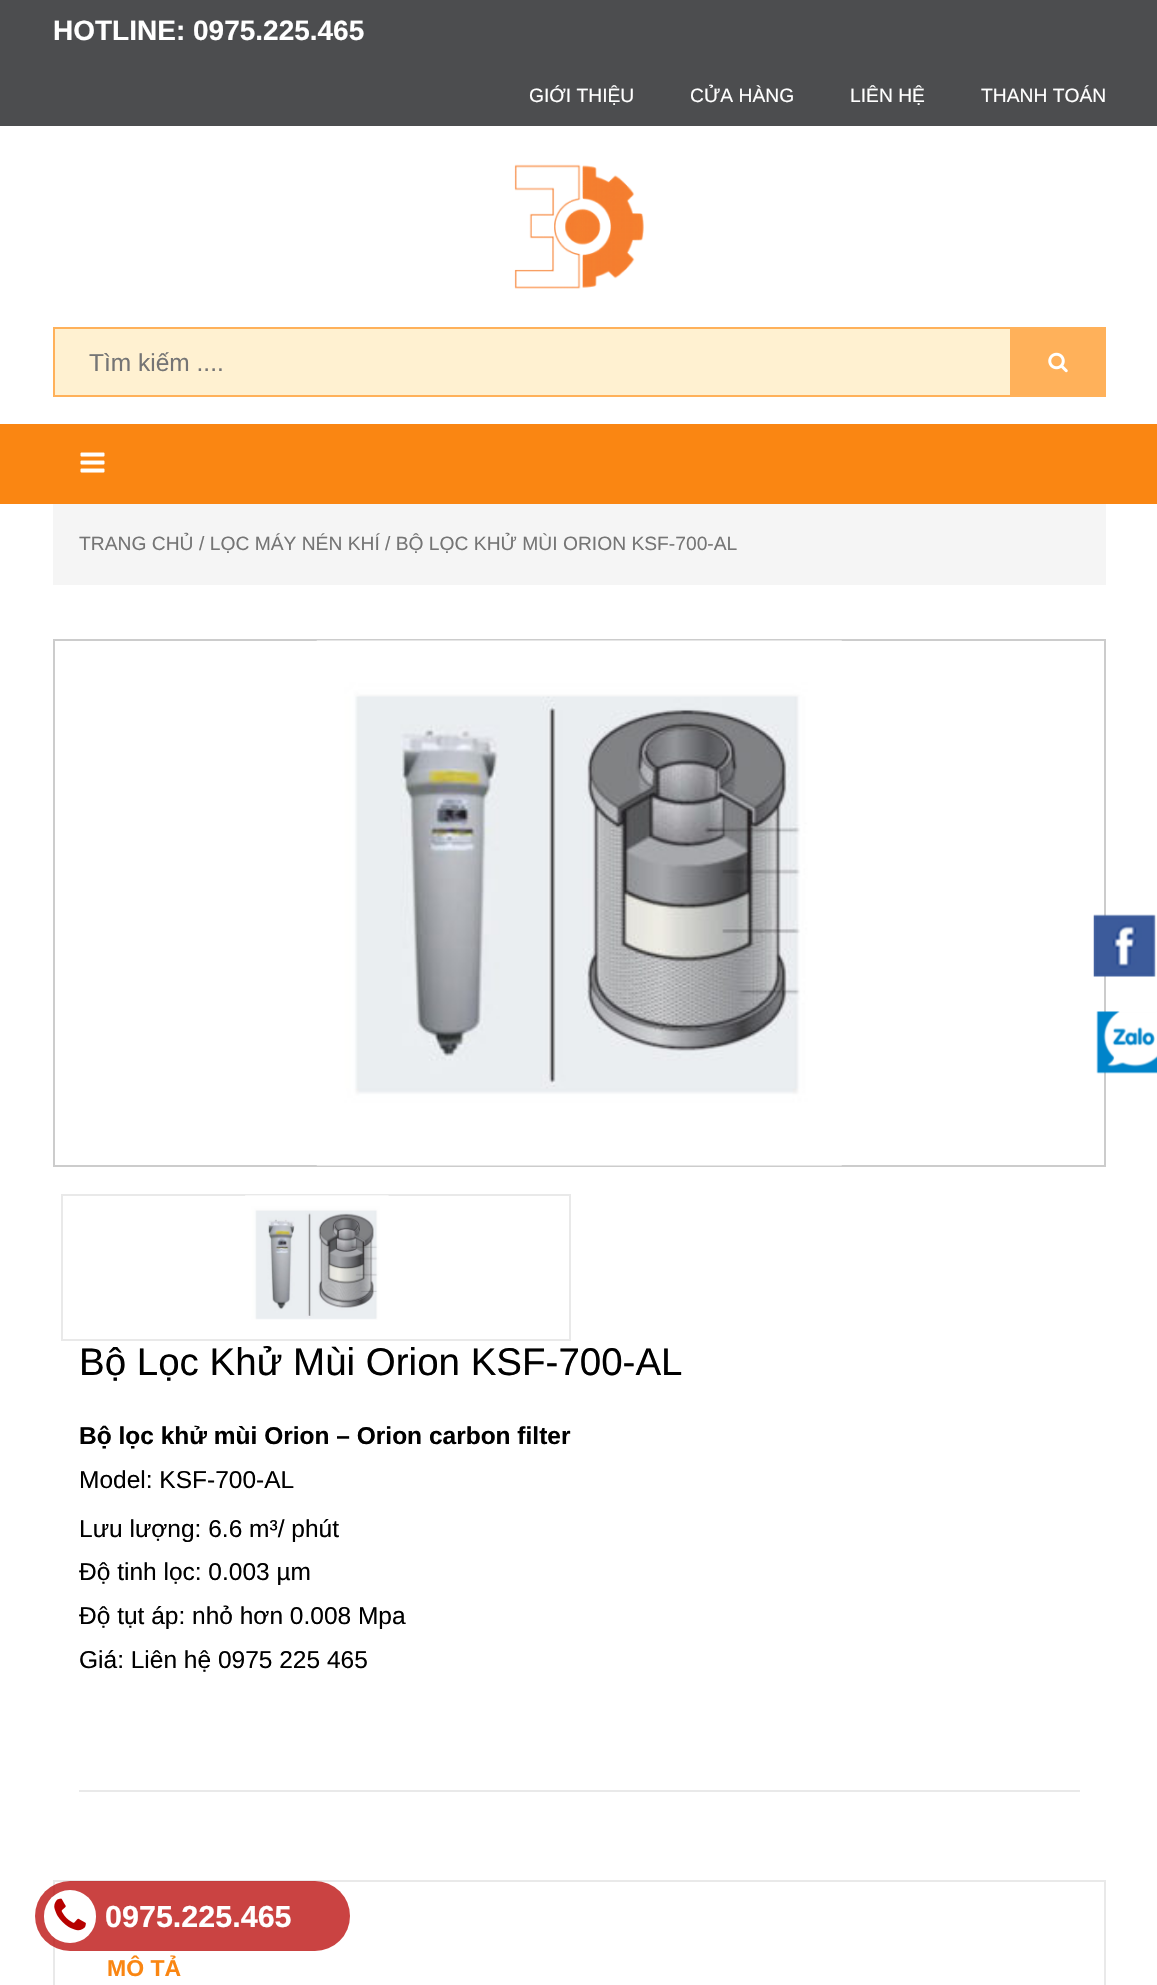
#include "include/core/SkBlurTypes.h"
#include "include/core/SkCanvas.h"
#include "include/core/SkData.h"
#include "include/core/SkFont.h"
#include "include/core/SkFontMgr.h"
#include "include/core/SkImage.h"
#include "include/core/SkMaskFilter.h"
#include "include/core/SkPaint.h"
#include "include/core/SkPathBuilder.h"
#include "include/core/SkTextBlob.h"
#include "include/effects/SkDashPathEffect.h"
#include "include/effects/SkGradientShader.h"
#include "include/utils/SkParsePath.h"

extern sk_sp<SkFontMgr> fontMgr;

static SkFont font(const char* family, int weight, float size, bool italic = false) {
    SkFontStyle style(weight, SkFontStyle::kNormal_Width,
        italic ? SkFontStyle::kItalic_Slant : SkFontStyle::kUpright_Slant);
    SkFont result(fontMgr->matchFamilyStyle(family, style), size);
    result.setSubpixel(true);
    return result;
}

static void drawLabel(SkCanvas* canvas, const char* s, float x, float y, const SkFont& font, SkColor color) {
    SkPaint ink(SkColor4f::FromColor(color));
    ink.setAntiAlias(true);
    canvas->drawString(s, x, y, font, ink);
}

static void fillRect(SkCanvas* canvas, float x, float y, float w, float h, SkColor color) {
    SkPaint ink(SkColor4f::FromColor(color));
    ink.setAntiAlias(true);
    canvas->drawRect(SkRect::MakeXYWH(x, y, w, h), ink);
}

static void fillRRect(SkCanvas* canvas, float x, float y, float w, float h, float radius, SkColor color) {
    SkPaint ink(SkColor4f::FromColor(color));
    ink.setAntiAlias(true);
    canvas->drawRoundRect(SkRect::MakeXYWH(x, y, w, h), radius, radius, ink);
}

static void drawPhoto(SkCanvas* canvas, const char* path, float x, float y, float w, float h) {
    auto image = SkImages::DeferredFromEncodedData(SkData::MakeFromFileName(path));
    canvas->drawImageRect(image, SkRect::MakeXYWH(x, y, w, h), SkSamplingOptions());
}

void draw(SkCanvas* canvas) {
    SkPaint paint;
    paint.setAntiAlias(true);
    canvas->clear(0xFFFFFFFF);
    fillRect(canvas, 0, 0, 1157, 126, 0xFF4C4D4F);
    SkFont font1 = font("Liberation Sans", 700, 28);
    drawLabel(canvas, "HOTLINE: 0975.225.465", 53, 40, font1, 0xFFFFFFFF);
    SkFont font2 = font("Liberation Sans", 400, 19.25f);
    drawLabel(canvas, "GIỚI THIỆU", 529, 102, font2, 0xFFFFFFFF);
    drawLabel(canvas, "CỬA HÀNG", 690, 102, font2, 0xFFFFFFFF);
    drawLabel(canvas, "LIÊN HỆ", 850, 102, font2, 0xFFFFFFFF);
    drawLabel(canvas, "THANH TOÁN", 981, 102, font2, 0xFFFFFFFF);
    drawPhoto(canvas, "assets/img1.png", 514, 164, 130, 125);
    fillRect(canvas, 55, 329, 955, 66, 0xFFFFF1D1);
    paint.setStroke(true);
    paint.setStrokeWidth(2);
    paint.setColor(0xFFFFB15A);
    canvas->drawRect(SkRect::MakeXYWH(54, 328, 1051, 68), paint);
    SkFont font3 = font("Liberation Sans", 400, 24.5f);
    drawLabel(canvas, "Tìm kiếm ....", 89, 371, font3, 0xFF757575);
    fillRect(canvas, 1010, 329, 94, 66, 0xFFFFB15A);
    drawPhoto(canvas, "assets/img2.png", 1048, 352, 20, 21);
    fillRect(canvas, 0, 424, 1157, 80, 0xFFFA8612);
    drawPhoto(canvas, "assets/img3.png", 80, 452, 25, 21);
    fillRect(canvas, 53, 504, 1053, 81, 0xFFF5F5F5);
    drawLabel(canvas, "TRANG CHỦ", 79, 550, font2, 0xFF757575);
    drawLabel(canvas, "/ LỌC MÁY NÉN KHÍ", 199, 550, font2, 0xFF757575);
    drawLabel(canvas, "/ BỘ LỌC KHỬ MÙI ORION KSF-700-AL", 385, 550, font2, 0xFF757575);
    paint.setColor(0xFFCCCCCC);
    canvas->drawRect(SkRect::MakeXYWH(54, 640, 1051, 526), paint);
    drawPhoto(canvas, "assets/img4.png", 316, 640, 526, 526);
    paint.setColor(0xFFE9E9E9);
    canvas->drawRect(SkRect::MakeXYWH(62, 1195, 508, 145), paint);
    drawPhoto(canvas, "assets/img5.png", 245, 1195, 144, 125);
    SkFont font4 = font("Liberation Sans", 400, 38.5f);
    drawLabel(canvas, "Bộ Lọc Khử Mùi Orion KSF-700-AL", 79, 1375, font4, 0xFF000000);
    SkFont font5 = font("Liberation Sans", 700, 24.5f);
    drawLabel(canvas, "Bộ lọc khử mùi Orion – Orion carbon filter", 79, 1444, font5, 0xFF000000);
    drawLabel(canvas, "Model: KSF-700-AL", 79, 1488, font3, 0xFF000000);
    drawLabel(canvas, "Lưu lượng: 6.6 m³/ phút", 79, 1537, font3, 0xFF000000);
    drawLabel(canvas, "Độ tinh lọc: 0.003 µm", 79, 1580, font3, 0xFF000000);
    drawLabel(canvas, "Độ tụt áp: nhỏ hơn 0.008 Mpa", 79, 1624, font3, 0xFF000000);
    drawLabel(canvas, "Giá: Liên hệ 0975 225 465", 79, 1668, font3, 0xFF000000);
    fillRect(canvas, 79, 1790, 1001, 2, 0xFFE9E9E9);
    canvas->drawRect(SkRect::MakeXYWH(54, 1881, 1051, 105), paint);
    SkFont font6 = font("Liberation Sans", 700, 23);
    drawLabel(canvas, "MÔ TẢ", 107, 1976, font6, 0xFFFA8612);
    drawPhoto(canvas, "assets/img6.png", 1093, 914, 63, 63);
    drawPhoto(canvas, "assets/img7.png", 1096, 1011, 61, 63);
    fillRRect(canvas, 35, 1881, 315, 70, 35, 0xBDB70100);
    fillRRect(canvas, 44, 1890, 52, 53, 26, 0xFFFFFFFF);
    drawPhoto(canvas, "assets/img8.png", 54, 1898, 32, 33);
    SkFont font7 = font("Liberation Sans", 700, 30.5f);
    drawLabel(canvas, "0975.225.465", 105, 1927, font7, 0xFFFFFFFF);
}
